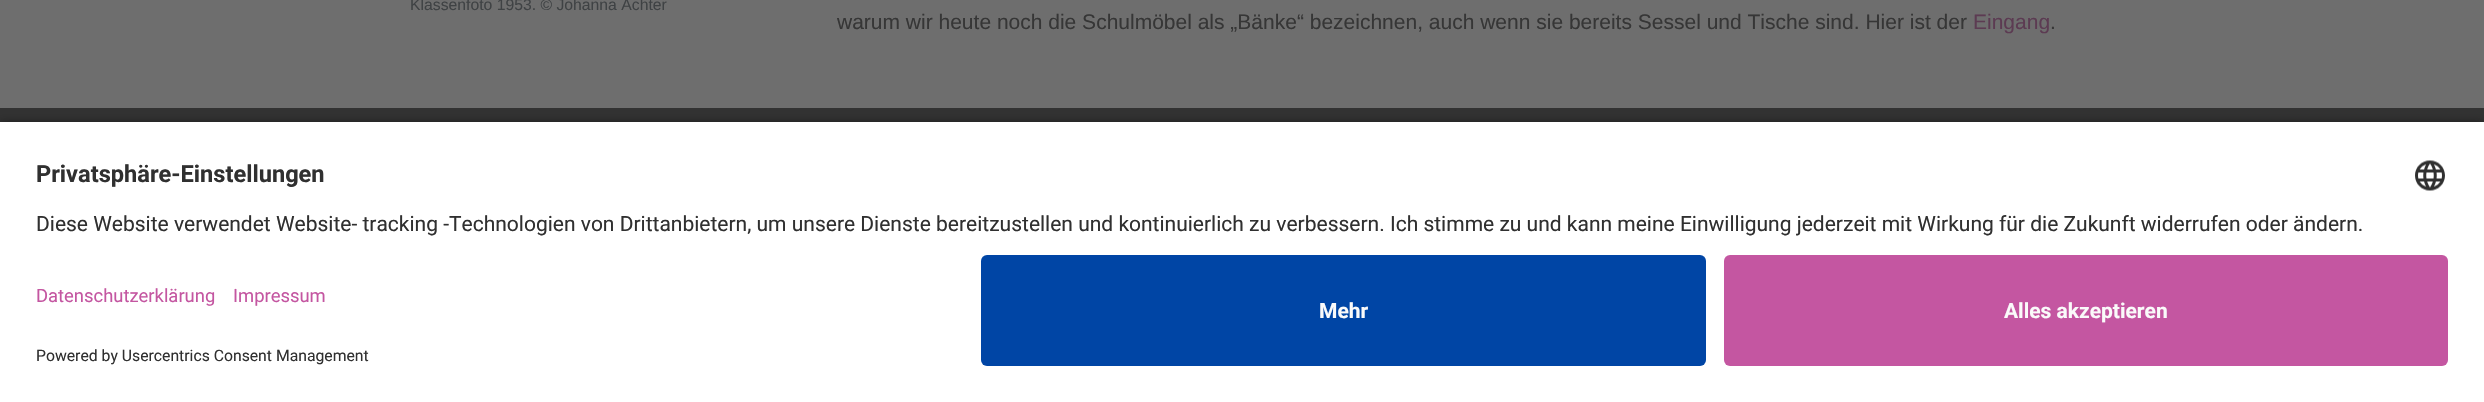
#include "include/core/SkBlurTypes.h"
#include "include/core/SkCanvas.h"
#include "include/core/SkData.h"
#include "include/core/SkFont.h"
#include "include/core/SkFontMgr.h"
#include "include/core/SkImage.h"
#include "include/core/SkMaskFilter.h"
#include "include/core/SkPaint.h"
#include "include/core/SkPathBuilder.h"
#include "include/core/SkTextBlob.h"
#include "include/effects/SkDashPathEffect.h"
#include "include/effects/SkGradientShader.h"
#include "include/utils/SkParsePath.h"

extern sk_sp<SkFontMgr> fontMgr;

static SkFont font(const char* family, int weight, float size, bool italic = false) {
    SkFontStyle style(weight, SkFontStyle::kNormal_Width,
        italic ? SkFontStyle::kItalic_Slant : SkFontStyle::kUpright_Slant);
    SkFont result(fontMgr->matchFamilyStyle(family, style), size);
    result.setSubpixel(true);
    return result;
}

static void drawLabel(SkCanvas* canvas, const char* s, float x, float y, const SkFont& font, SkColor color) {
    SkPaint ink(SkColor4f::FromColor(color));
    ink.setAntiAlias(true);
    canvas->drawString(s, x, y, font, ink);
}

static void fillRect(SkCanvas* canvas, float x, float y, float w, float h, SkColor color) {
    SkPaint ink(SkColor4f::FromColor(color));
    ink.setAntiAlias(true);
    canvas->drawRect(SkRect::MakeXYWH(x, y, w, h), ink);
}

static void fillRRect(SkCanvas* canvas, float x, float y, float w, float h, float radius, SkColor color) {
    SkPaint ink(SkColor4f::FromColor(color));
    ink.setAntiAlias(true);
    canvas->drawRoundRect(SkRect::MakeXYWH(x, y, w, h), radius, radius, ink);
}

static void drawPhoto(SkCanvas* canvas, const char* path, float x, float y, float w, float h) {
    auto image = SkImages::DeferredFromEncodedData(SkData::MakeFromFileName(path));
    canvas->drawImageRect(image, SkRect::MakeXYWH(x, y, w, h), SkSamplingOptions());
}

void draw(SkCanvas* canvas) {
    SkPaint paint;
    paint.setAntiAlias(true);
    canvas->clear(0xFF6E6E6E);
    SkFont font1 = font("Liberation Sans", 400, 15.75f);
    drawLabel(canvas, "Klassenfoto 1953. © Johanna Achter", 410, 10, font1, 0xFF3F4244);
    SkFont font2 = font("Liberation Sans", 400, 21);
    drawLabel(canvas, "warum wir heute noch die Schulmöbel als „Bänke“ bezeichnen, auch wenn sie bereits Sessel und Tische sind. Hier ist der", 837, 29, font2, 0xFF363636);
    drawLabel(canvas, "Eingang", 1973, 29, font2, 0xFF5C3B52);
    drawLabel(canvas, ".", 2050, 29, font2, 0xFF363636);
    fillRect(canvas, 0, 108, 2484, 14, 0xFF323232);
    paint.setColor(0xCC000000);
    paint.setMaskFilter(SkMaskFilter::MakeBlur(kNormal_SkBlurStyle, 5));
    canvas->drawRect(SkRect::MakeXYWH(0, 125, 2484, 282), paint);
    paint.setMaskFilter(nullptr);
    fillRect(canvas, 0, 122, 2484, 280, 0xFFFFFFFF);
    SkFont font3 = font("Roboto", 700, 23.6f);
    drawLabel(canvas, "Privatsphäre-Einstellungen", 36, 182, font3, 0xFF303030);
    drawPhoto(canvas, "assets/img1.png", 2415, 160, 30, 31);
    SkFont font4 = font("Roboto", 400, 21);
    drawLabel(canvas, "Diese Website verwendet Website- tracking -Technologien von Drittanbietern, um unsere Dienste bereitzustellen und kontinuierlich zu verbessern. Ich stimme zu und kann meine Einwilligung jederzeit mit Wirkung für die Zukunft widerrufen oder ändern.", 36, 231, font4, 0xFF303030);
    SkFont font5 = font("Roboto", 400, 18.4f);
    drawLabel(canvas, "Datenschutzerklärung", 36, 302, font5, 0xFFC456A1);
    drawLabel(canvas, "Impressum", 233, 302, font5, 0xFFC456A1);
    SkFont font6 = font("Roboto", 400, 15.75f);
    drawLabel(canvas, "Powered by Usercentrics Consent Management", 36, 361, font6, 0xFF303030);
    fillRRect(canvas, 981, 255, 725, 111, 6, 0xFF0045A5);
    SkFont font7 = font("Roboto", 700, 21);
    drawLabel(canvas, "Mehr", 1319, 318, font7, 0xFFFAFAFA);
    fillRRect(canvas, 1724, 255, 724, 111, 6, 0xFFC456A1);
    drawLabel(canvas, "Alles akzeptieren", 2004, 318, font7, 0xFFFAFAFA);
}
